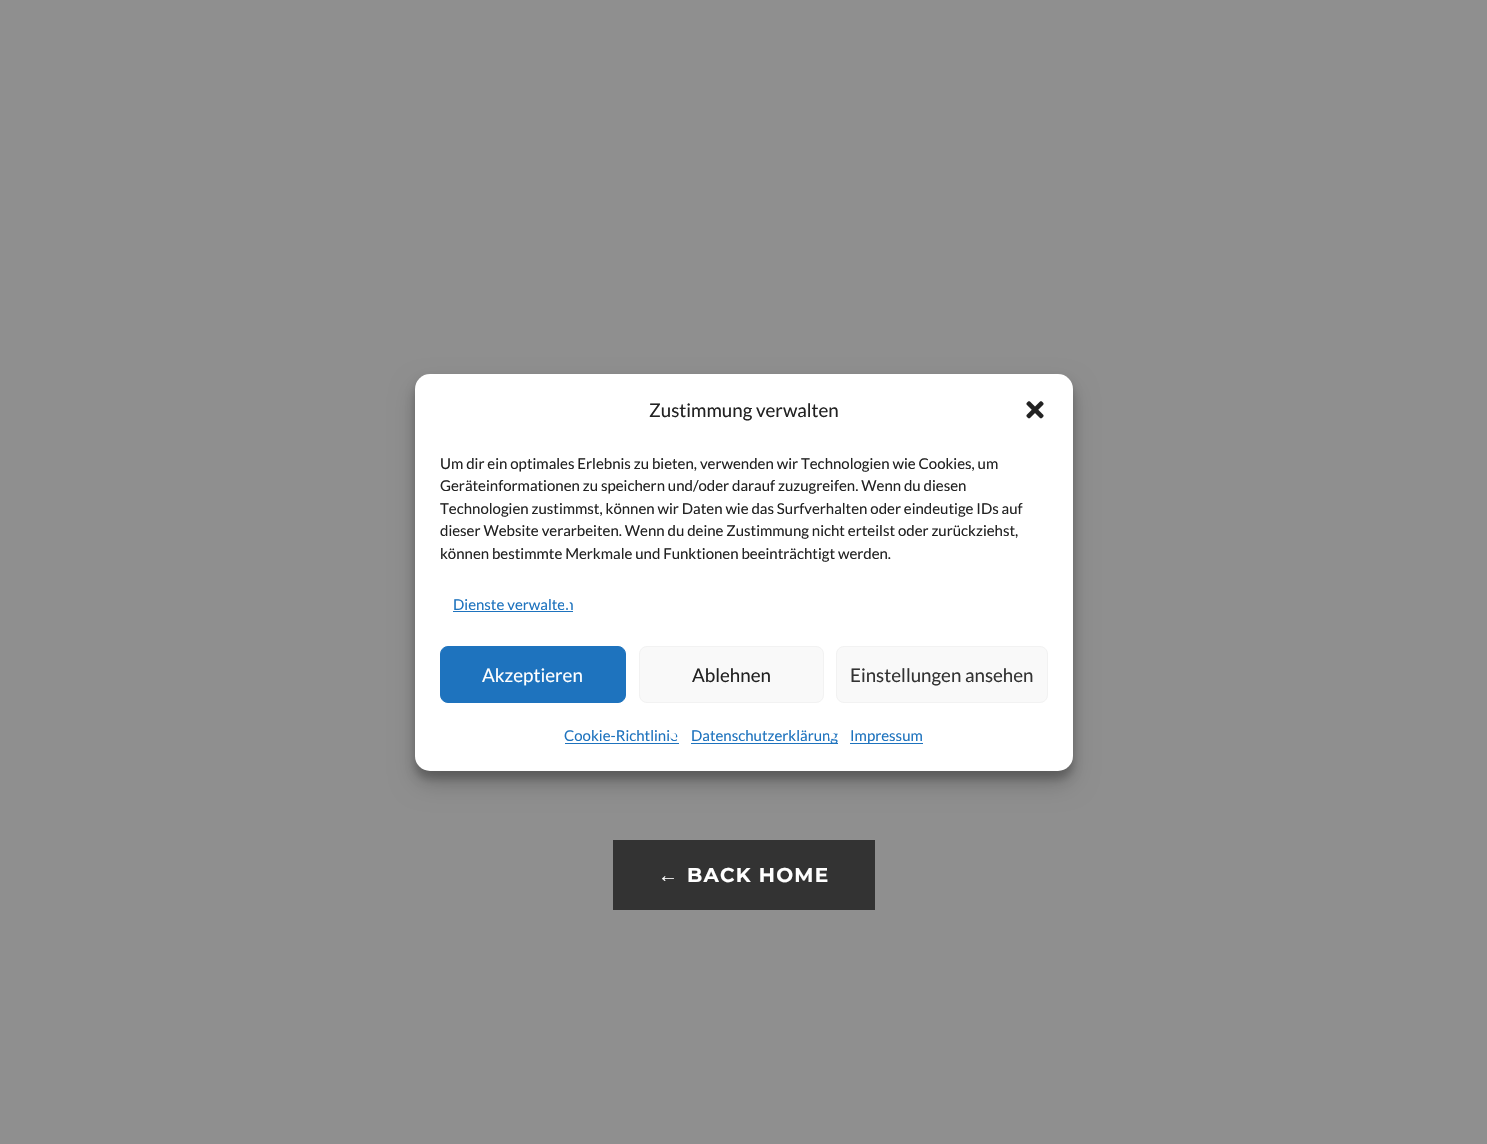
#include "include/core/SkBlurTypes.h"
#include "include/core/SkCanvas.h"
#include "include/core/SkData.h"
#include "include/core/SkFont.h"
#include "include/core/SkFontMgr.h"
#include "include/core/SkImage.h"
#include "include/core/SkMaskFilter.h"
#include "include/core/SkPaint.h"
#include "include/core/SkPathBuilder.h"
#include "include/core/SkTextBlob.h"
#include "include/effects/SkDashPathEffect.h"
#include "include/effects/SkGradientShader.h"
#include "include/utils/SkParsePath.h"

extern sk_sp<SkFontMgr> fontMgr;

static SkFont font(const char* family, int weight, float size, bool italic = false) {
    SkFontStyle style(weight, SkFontStyle::kNormal_Width,
        italic ? SkFontStyle::kItalic_Slant : SkFontStyle::kUpright_Slant);
    SkFont result(fontMgr->matchFamilyStyle(family, style), size);
    result.setSubpixel(true);
    return result;
}

static void drawLabel(SkCanvas* canvas, const char* s, float x, float y, const SkFont& font, SkColor color) {
    SkPaint ink(SkColor4f::FromColor(color));
    ink.setAntiAlias(true);
    canvas->drawString(s, x, y, font, ink);
}

static void drawTracked(SkCanvas* canvas, const char* s, float x, float y, const SkFont& font, const SkPaint& ink, float letter, float word) {
    std::vector<SkGlyphID> glyphs(font.countText(s, strlen(s), SkTextEncoding::kUTF8));
    std::vector<float> xs(glyphs.size());
    font.textToGlyphs(s, strlen(s), SkTextEncoding::kUTF8, glyphs);
    font.getXPos(glyphs, xs, x);
    float extra = 0;
    for (size_t i = 0; i < glyphs.size(); i++) {
        xs[i] += extra;
        extra += letter + word * (glyphs[i] == font.unicharToGlyph(' '));
    }
    canvas->drawTextBlob(SkTextBlob::MakeFromPosHGlyphs(glyphs, xs, y, font), 0, 0, ink);
}

static void fillRect(SkCanvas* canvas, float x, float y, float w, float h, SkColor color) {
    SkPaint ink(SkColor4f::FromColor(color));
    ink.setAntiAlias(true);
    canvas->drawRect(SkRect::MakeXYWH(x, y, w, h), ink);
}

static void fillRRect(SkCanvas* canvas, float x, float y, float w, float h, float radius, SkColor color) {
    SkPaint ink(SkColor4f::FromColor(color));
    ink.setAntiAlias(true);
    canvas->drawRoundRect(SkRect::MakeXYWH(x, y, w, h), radius, radius, ink);
}

static void drawPhoto(SkCanvas* canvas, const char* path, float x, float y, float w, float h) {
    auto image = SkImages::DeferredFromEncodedData(SkData::MakeFromFileName(path));
    canvas->drawImageRect(image, SkRect::MakeXYWH(x, y, w, h), SkSamplingOptions());
}

void draw(SkCanvas* canvas) {
    SkPaint paint;
    paint.setAntiAlias(true);
    canvas->clear(0xFF8F8F8F);
    paint.setColor(0x3B000000);
    paint.setMaskFilter(SkMaskFilter::MakeBlur(kNormal_SkBlurStyle, 4));
    canvas->drawRoundRect(SkRect::MakeXYWH(415, 381, 658, 398), 15, 15, paint);
    paint.setMaskFilter(nullptr);
    paint.setColor(0x30000000);
    paint.setMaskFilter(SkMaskFilter::MakeBlur(kNormal_SkBlurStyle, 12.5f));
    canvas->drawRoundRect(SkRect::MakeXYWH(415, 386, 658, 398), 15, 15, paint);
    paint.setMaskFilter(nullptr);
    fillRRect(canvas, 415, 374, 658, 397, 15, 0xFFFFFFFF);
    SkFont font1 = font("Lato", 400, 18.75f);
    drawLabel(canvas, "Zustimmung verwalten", 649, 417, font1, 0xFF222222);
    drawPhoto(canvas, "assets/img1.png", 1026, 401, 18, 18);
    SkFont font2 = font("Lato", 400, 15);
    drawLabel(canvas, "Um dir ein optimales Erlebnis zu bieten, verwenden wir Technologien wie Cookies, um", 440, 469, font2, 0xFF222222);
    drawLabel(canvas, "Geräteinformationen zu speichern und/oder darauf zuzugreifen. Wenn du diesen", 440, 491, font2, 0xFF222222);
    drawLabel(canvas, "Technologien zustimmst, können wir Daten wie das Surfverhalten oder eindeutige IDs auf", 440, 514, font2, 0xFF222222);
    drawLabel(canvas, "dieser Website verarbeiten. Wenn du deine Zustimmung nicht erteilst oder zurückziehst,", 440, 536, font2, 0xFF222222);
    drawLabel(canvas, "können bestimmte Merkmale und Funktionen beeinträchtigt werden.", 440, 559, font2, 0xFF222222);
    drawLabel(canvas, "Dienste verwalten", 453, 610, font2, 0xFF1E73BE);
    fillRect(canvas, 453, 611, 120, 1, 0xFF1E73BE);
    fillRRect(canvas, 564, 601, 6, 7, 3, 0xFFFFFFFF);
    paint.setColor(0xFF1E73BE);
    canvas->drawRoundRect(SkRect::MakeXYWH(440.5f, 646.5f, 185, 56), 7.5f, 7.5f, paint);
    paint.setStroke(true);
    paint.setStrokeWidth(1);
    canvas->drawRoundRect(SkRect::MakeXYWH(440.5f, 646.5f, 185, 56), 7.5f, 7.5f, paint);
    drawLabel(canvas, "Akzeptieren", 482, 682, font1, 0xFFFFFFFF);
    paint.setStroke(false);
    paint.setColor(0xFFF9F9F9);
    canvas->drawRoundRect(SkRect::MakeXYWH(639.5f, 646.5f, 184, 56), 7.5f, 7.5f, paint);
    paint.setStroke(true);
    paint.setColor(0xFFF2F2F2);
    canvas->drawRoundRect(SkRect::MakeXYWH(639.5f, 646.5f, 184, 56), 7.5f, 7.5f, paint);
    drawLabel(canvas, "Ablehnen", 692, 682, font1, 0xFF222222);
    paint.setStroke(false);
    paint.setColor(0xFFF9F9F9);
    canvas->drawRoundRect(SkRect::MakeXYWH(836.5f, 646.5f, 211, 56), 7.5f, 7.5f, paint);
    paint.setStroke(true);
    paint.setColor(0xFFF2F2F2);
    canvas->drawRoundRect(SkRect::MakeXYWH(836.5f, 646.5f, 211, 56), 7.5f, 7.5f, paint);
    drawLabel(canvas, "Einstellungen ansehen", 850, 682, font1, 0xFF333333);
    drawLabel(canvas, "Cookie-Richtlinie", 564, 741, font2, 0xFF1E73BE);
    fillRect(canvas, 565, 743, 114, 1, 0xFF1E73BE);
    paint.setStroke(false);
    paint.setColor(0xFFFFFFFF);
    canvas->drawCircle(673, 736, 3, paint);
    fillRect(canvas, 691, 743, 147, 1, 0xFF1E73BE);
    drawLabel(canvas, "Datenschutzerklärung", 691, 741, font2, 0xFF1E73BE);
    canvas->drawCircle(832, 736, 3, paint);
    fillRect(canvas, 850, 743, 73, 1, 0xFF1E73BE);
    drawLabel(canvas, "Impressum", 850, 741, font2, 0xFF1E73BE);
    fillRect(canvas, 613, 840, 262, 70, 0xFF333333);
    SkFont font3 = font("Liberation Serif", 700, 20);
    drawTracked(canvas, "←", 658, 882, font3, paint, 1.25f, 0);
    SkFont font4 = font("Montserrat", 700, 20);
    drawTracked(canvas, "BACK HOME", 687, 882, font4, paint, 1.25f, 0);
}
